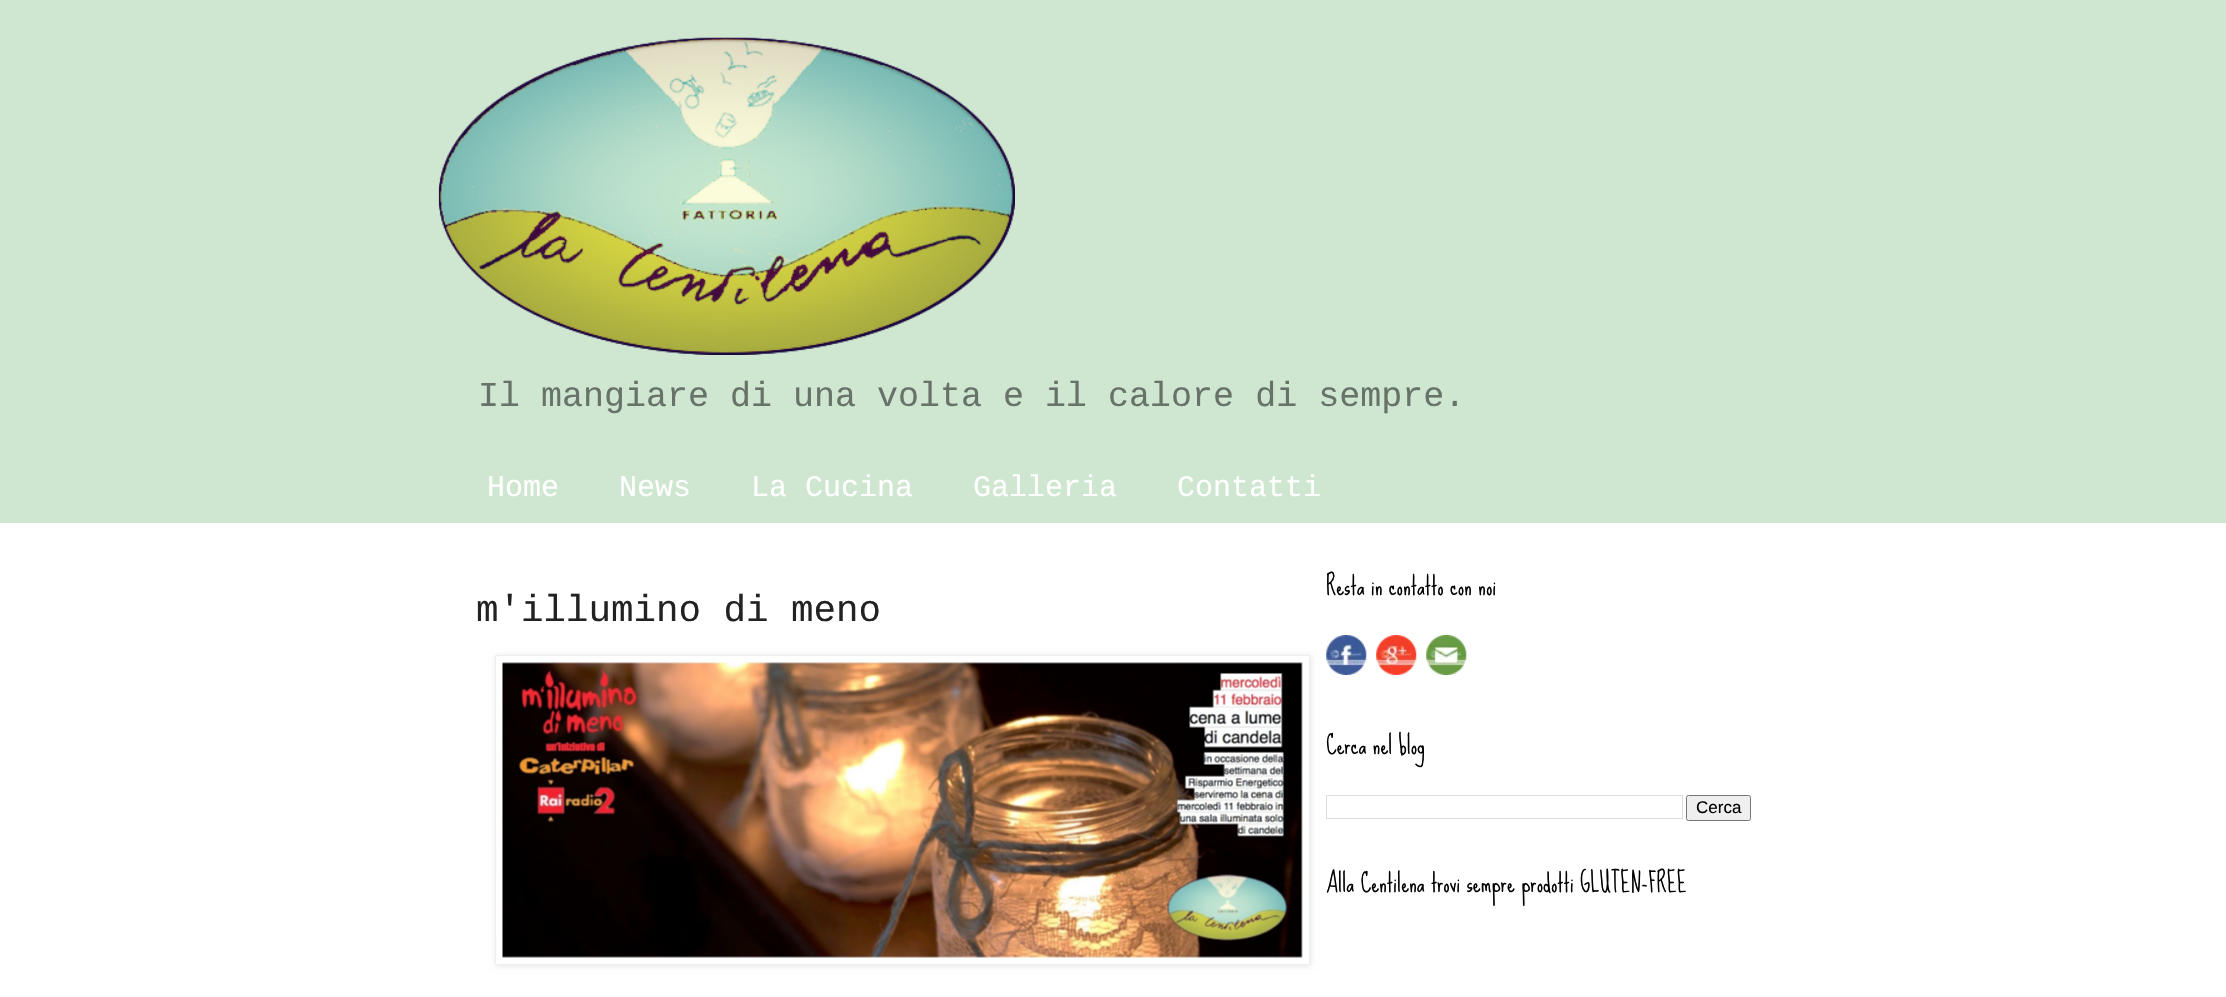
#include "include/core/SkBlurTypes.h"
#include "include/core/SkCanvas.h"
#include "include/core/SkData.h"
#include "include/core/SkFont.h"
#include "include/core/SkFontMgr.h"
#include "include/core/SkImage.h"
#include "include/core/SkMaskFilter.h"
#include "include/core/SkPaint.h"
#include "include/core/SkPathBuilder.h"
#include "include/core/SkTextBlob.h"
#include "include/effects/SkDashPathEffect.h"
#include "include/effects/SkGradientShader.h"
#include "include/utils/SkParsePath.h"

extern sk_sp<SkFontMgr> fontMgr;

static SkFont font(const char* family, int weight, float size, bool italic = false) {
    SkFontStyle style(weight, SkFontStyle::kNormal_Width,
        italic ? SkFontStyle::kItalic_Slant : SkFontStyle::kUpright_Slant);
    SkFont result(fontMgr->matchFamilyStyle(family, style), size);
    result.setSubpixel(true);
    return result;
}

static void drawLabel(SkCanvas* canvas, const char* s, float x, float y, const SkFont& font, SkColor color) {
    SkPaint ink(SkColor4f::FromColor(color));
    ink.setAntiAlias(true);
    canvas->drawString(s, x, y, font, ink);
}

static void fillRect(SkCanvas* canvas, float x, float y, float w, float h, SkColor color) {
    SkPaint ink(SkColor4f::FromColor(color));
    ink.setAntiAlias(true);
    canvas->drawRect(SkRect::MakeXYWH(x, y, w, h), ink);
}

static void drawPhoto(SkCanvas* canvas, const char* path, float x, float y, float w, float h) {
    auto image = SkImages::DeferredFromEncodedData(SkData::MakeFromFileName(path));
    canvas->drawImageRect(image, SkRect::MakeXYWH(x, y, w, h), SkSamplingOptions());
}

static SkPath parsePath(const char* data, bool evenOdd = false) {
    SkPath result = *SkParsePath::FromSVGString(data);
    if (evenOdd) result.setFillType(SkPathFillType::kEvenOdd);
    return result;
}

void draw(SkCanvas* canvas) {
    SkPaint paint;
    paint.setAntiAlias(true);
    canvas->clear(0xFFCFE7D1);
    drawPhoto(canvas, "assets/img1.png", 438, 37, 577, 318);
    SkFont font1 = font("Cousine", 400, 35);
    drawLabel(canvas, "Il mangiare di una volta e il calore di sempre.", 478, 406, font1, 0xFF677368);
    SkFont font2 = font("Cousine", 400, 30);
    drawLabel(canvas, "Home", 487, 496, font2, 0xFFFFFFFF);
    drawLabel(canvas, "News", 619, 496, font2, 0xFFFFFFFF);
    drawLabel(canvas, "La Cucina", 751, 496, font2, 0xFFFFFFFF);
    drawLabel(canvas, "Galleria", 973, 496, font2, 0xFFFFFFFF);
    drawLabel(canvas, "Contatti", 1177, 496, font2, 0xFFFFFFFF);
    fillRect(canvas, 0, 523, 2226, 474, 0xFFFFFFFF);
    SkFont font3 = font("Cousine", 400, 37.5f);
    drawLabel(canvas, "m'illumino di meno", 476, 621, font3, 0xFF222222);
    canvas->save();
    canvas->clipPath(parsePath("M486 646H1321V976H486ZM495 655H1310V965H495Z", true), true);
    paint.setColor(0x1A000000);
    paint.setMaskFilter(SkMaskFilter::MakeBlur(kNormal_SkBlurStyle, 3));
    canvas->drawRect(SkRect::MakeXYWH(496, 656, 815, 310), paint);
    paint.setMaskFilter(nullptr);
    canvas->restore();
    paint.setStroke(true);
    paint.setStrokeWidth(1);
    paint.setColor(0xFFEEEEEE);
    canvas->drawRect(SkRect::MakeXYWH(495.5f, 655.5f, 814, 309), paint);
    drawPhoto(canvas, "assets/img2.png", 502, 662, 801, 296);
    SkFont font4 = font("Sue Ellen Francisco", 400, 25);
    drawLabel(canvas, "Resta in contatto con noi", 1326, 595, font4, 0xFF000000);
    drawPhoto(canvas, "assets/img3.png", 1326, 635, 41, 40);
    drawPhoto(canvas, "assets/img4.png", 1376, 635, 41, 40);
    drawPhoto(canvas, "assets/img5.png", 1426, 635, 41, 40);
    drawLabel(canvas, "Cerca nel blog", 1326, 754, font4, 0xFF000000);
    paint.setColor(0xFFDDDDDD);
    canvas->drawRect(SkRect::MakeXYWH(1326.5f, 795.5f, 356, 23), paint);
    paint.setStroke(false);
    paint.setColor(0xFFEFEFEF);
    canvas->drawRoundRect(SkRect::MakeXYWH(1686.5f, 795.5f, 64, 25), 2, 2, paint);
    paint.setStroke(true);
    paint.setColor(0xFF767676);
    canvas->drawRoundRect(SkRect::MakeXYWH(1686.5f, 795.5f, 64, 25), 2, 2, paint);
    SkFont font5 = font("Liberation Sans", 400, 17);
    drawLabel(canvas, "Cerca", 1696, 813, font5, 0xFF000000);
    drawLabel(canvas, "Alla Centilena trovi sempre prodotti GLUTEN-FREE", 1326, 892, font4, 0xFF000000);
}
